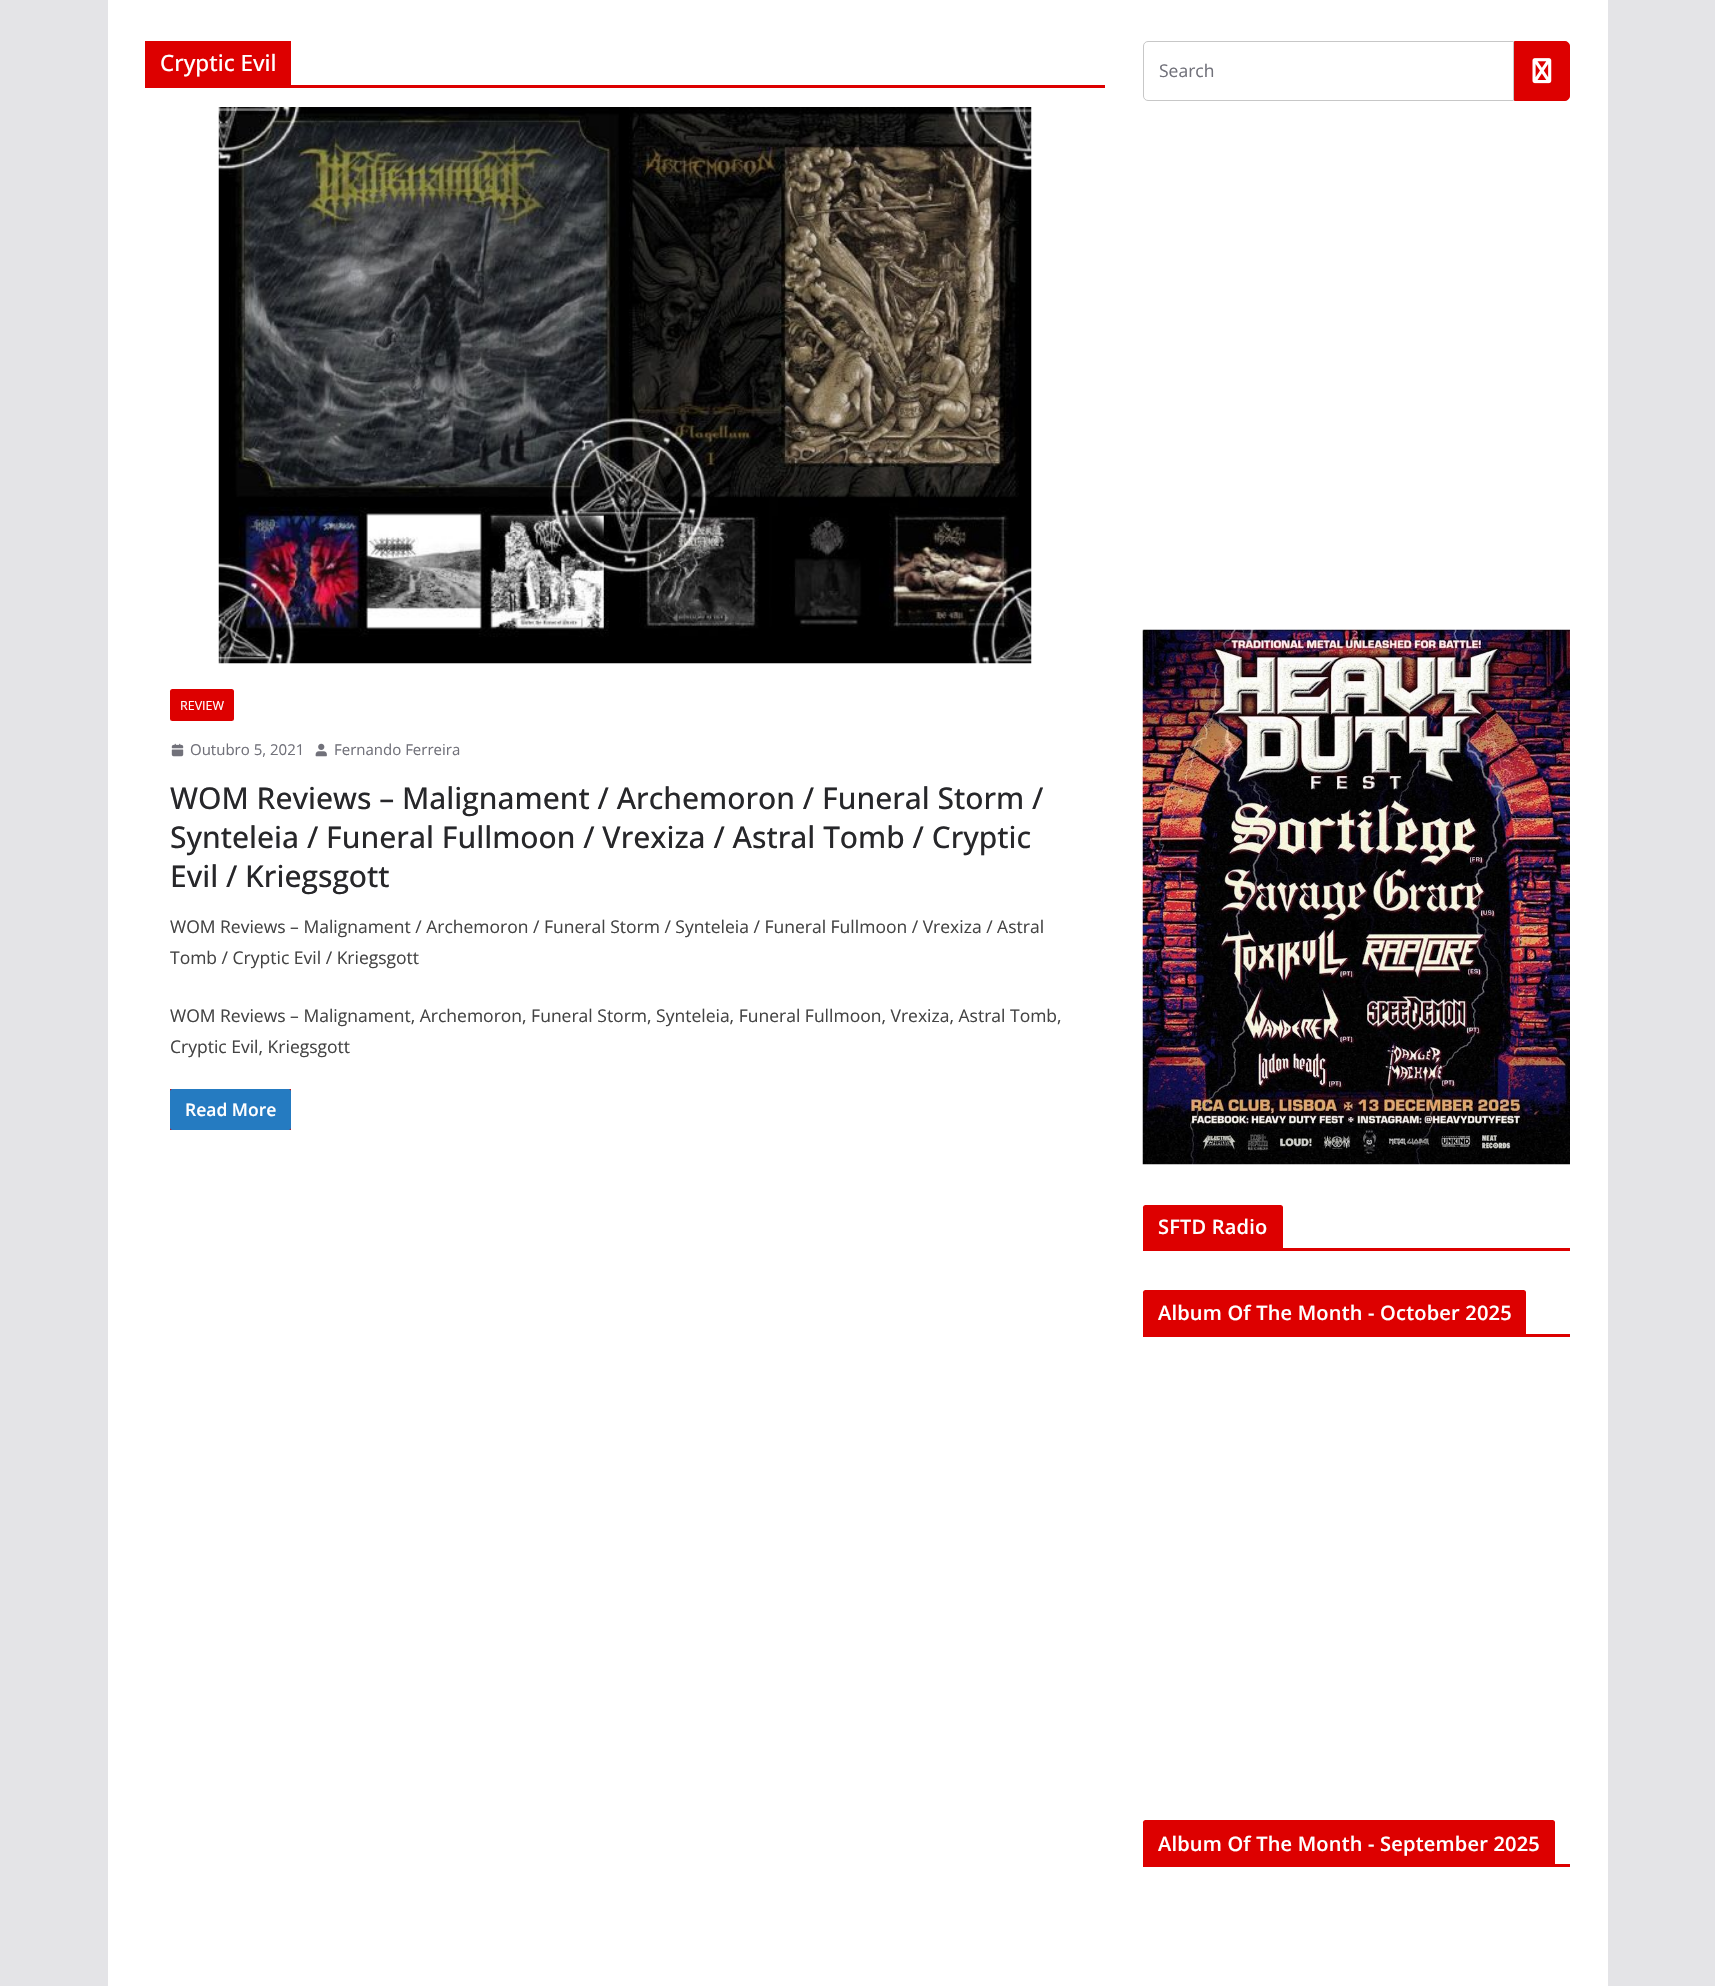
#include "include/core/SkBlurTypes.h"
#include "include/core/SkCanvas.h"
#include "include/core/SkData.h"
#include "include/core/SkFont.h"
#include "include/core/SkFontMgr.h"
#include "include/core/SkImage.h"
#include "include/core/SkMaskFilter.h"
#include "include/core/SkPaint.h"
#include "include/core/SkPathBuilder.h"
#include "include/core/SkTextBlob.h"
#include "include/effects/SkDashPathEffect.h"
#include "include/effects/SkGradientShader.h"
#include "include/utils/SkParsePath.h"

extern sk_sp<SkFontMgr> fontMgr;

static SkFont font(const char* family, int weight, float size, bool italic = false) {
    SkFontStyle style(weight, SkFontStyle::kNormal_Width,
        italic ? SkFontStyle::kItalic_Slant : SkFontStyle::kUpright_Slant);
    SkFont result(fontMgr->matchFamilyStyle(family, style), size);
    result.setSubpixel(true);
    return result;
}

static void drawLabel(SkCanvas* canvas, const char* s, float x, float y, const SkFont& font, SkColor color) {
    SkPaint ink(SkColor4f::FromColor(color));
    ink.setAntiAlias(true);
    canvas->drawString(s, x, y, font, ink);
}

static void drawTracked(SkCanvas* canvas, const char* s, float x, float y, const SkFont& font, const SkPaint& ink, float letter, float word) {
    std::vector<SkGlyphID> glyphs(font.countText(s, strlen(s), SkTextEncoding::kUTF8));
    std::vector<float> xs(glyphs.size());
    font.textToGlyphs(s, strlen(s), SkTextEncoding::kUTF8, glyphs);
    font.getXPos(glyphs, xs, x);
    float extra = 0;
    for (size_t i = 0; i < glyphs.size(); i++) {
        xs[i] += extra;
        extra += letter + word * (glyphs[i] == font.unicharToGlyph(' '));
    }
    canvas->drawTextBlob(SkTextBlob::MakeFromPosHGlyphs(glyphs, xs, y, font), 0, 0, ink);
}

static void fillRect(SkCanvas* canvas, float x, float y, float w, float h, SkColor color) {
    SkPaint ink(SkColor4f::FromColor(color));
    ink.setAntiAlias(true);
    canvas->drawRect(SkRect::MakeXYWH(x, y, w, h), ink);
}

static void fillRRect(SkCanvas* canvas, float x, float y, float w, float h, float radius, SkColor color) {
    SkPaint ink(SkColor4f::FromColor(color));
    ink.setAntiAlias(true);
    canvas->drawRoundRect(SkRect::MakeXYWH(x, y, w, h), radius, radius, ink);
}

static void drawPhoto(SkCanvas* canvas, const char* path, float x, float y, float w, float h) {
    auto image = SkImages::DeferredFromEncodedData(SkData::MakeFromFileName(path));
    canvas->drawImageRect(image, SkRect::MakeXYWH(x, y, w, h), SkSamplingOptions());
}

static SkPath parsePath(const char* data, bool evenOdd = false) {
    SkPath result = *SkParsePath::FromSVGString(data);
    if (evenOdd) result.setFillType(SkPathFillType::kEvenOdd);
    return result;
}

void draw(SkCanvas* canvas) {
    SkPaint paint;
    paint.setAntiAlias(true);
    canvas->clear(0xFFE4E4E7);
    fillRect(canvas, 108, 0, 1500, 1986, 0xFFFFFFFF);
    fillRect(canvas, 145, 85, 960, 3, 0xFFDD0000);
    fillRect(canvas, 145, 41, 146, 44, 0xFFDD0000);
    SkFont font1 = font("Open Sans", 500, 22.5f);
    drawLabel(canvas, "Cryptic Evil", 160, 71, font1, 0xFFFFFFFF);
    drawPhoto(canvas, "assets/img1.png", 218, 107, 814, 557);
    fillRRect(canvas, 170, 689, 64, 32, 2.5f, 0xFFDD0000);
    SkFont font2 = font("Open Sans", 400, 12.5f);
    drawLabel(canvas, "REVIEW", 180, 710, font2, 0xFFFFFFFF);
    drawPhoto(canvas, "assets/img2.png", 171, 743, 13, 14);
    SkFont font3 = font("Open Sans", 400, 15);
    drawLabel(canvas, "Outubro 5, 2021", 190, 755, font3, 0xFF71717A);
    drawPhoto(canvas, "assets/img3.png", 315, 743, 12, 14);
    drawLabel(canvas, "Fernando Ferreira", 334, 755, font3, 0xFF71717A);
    SkFont font4 = font("Open Sans", 500, 30);
    drawLabel(canvas, "WOM Reviews – Malignament / Archemoron / Funeral Storm /", 170, 809, font4, 0xFF27272A);
    drawLabel(canvas, "Synteleia / Funeral Fullmoon / Vrexiza / Astral Tomb / Cryptic", 170, 848, font4, 0xFF27272A);
    drawLabel(canvas, "Evil / Kriegsgott", 170, 887, font4, 0xFF27272A);
    SkFont font5 = font("Open Sans", 400, 17.5f);
    drawLabel(canvas, "WOM Reviews – Malignament / Archemoron / Funeral Storm / Synteleia / Funeral Fullmoon / Vrexiza / Astral", 170, 933, font5, 0xFF444444);
    drawLabel(canvas, "Tomb / Cryptic Evil / Kriegsgott", 170, 964, font5, 0xFF444444);
    drawLabel(canvas, "WOM Reviews – Malignament, Archemoron, Funeral Storm, Synteleia, Funeral Fullmoon, Vrexiza, Astral Tomb,", 170, 1022, font5, 0xFF444444);
    drawLabel(canvas, "Cryptic Evil, Kriegsgott", 170, 1053, font5, 0xFF444444);
    fillRect(canvas, 170, 1089, 121, 41, 0xFFDD0000);
    fillRRect(canvas, 170, 1089, 121, 41, 2.5f, 0xFF257BC1);
    SkFont font6 = font("Open Sans", 600, 17.5f);
    drawLabel(canvas, "Read More", 185, 1116, font6, 0xFFFFFFFF);
    paint.setStroke(true);
    paint.setStrokeWidth(1);
    paint.setColor(0xFFC7C7C7);
    canvas->drawPath(parsePath("M1148 41.5H1513.5V100.5H1148C1145.5 100.5 1143.5 98.5 1143.5 96V46C1143.5 43.5 1145.5 41.5 1148 41.5Z"), paint);
    drawLabel(canvas, "Search", 1159, 77, font5, 0xFF71717A);
    paint.setStroke(false);
    paint.setColor(0xFFDD0000);
    canvas->drawPath(parsePath("M1514.5 41.5H1565C1567.5 41.5 1569.5 43.5 1569.5 46V96C1569.5 98.5 1567.5 100.5 1565 100.5H1514.5Z"), paint);
    paint.setStroke(true);
    canvas->drawPath(parsePath("M1514.5 41.5H1565C1567.5 41.5 1569.5 43.5 1569.5 46V96C1569.5 98.5 1567.5 100.5 1565 100.5H1514.5Z"), paint);
    drawPhoto(canvas, "assets/img4.png", 1532, 58, 20, 26);
    drawPhoto(canvas, "assets/img5.png", 1142, 629, 428, 536);
    fillRect(canvas, 1143, 1248, 427, 3, 0xFFDD0000);
    paint.setStroke(false);
    canvas->drawPath(parsePath("M1145.5 1205H1280.5C1282 1205 1283 1206 1283 1207.5V1248H1143V1207.5C1143 1206 1144 1205 1145.5 1205Z"), paint);
    SkFont font7 = font("Open Sans", 600, 20);
    paint.setColor(0xFFFFFFFF);
    drawTracked(canvas, "SFTD Radio", 1158, 1234, font7, paint, 0.2f, 0);
    fillRect(canvas, 1143, 1334, 427, 3, 0xFFDD0000);
    paint.setColor(0xFFDD0000);
    canvas->drawPath(parsePath("M1145.5 1290H1523.5C1525 1290 1526 1291 1526 1292.5V1334H1143V1292.5C1143 1291 1144 1290 1145.5 1290Z"), paint);
    paint.setColor(0xFFFFFFFF);
    drawTracked(canvas, "Album Of The Month - October 2025", 1158, 1320, font7, paint, 0.2f, 0);
    fillRect(canvas, 1143, 1864, 427, 3, 0xFFDD0000);
    paint.setColor(0xFFDD0000);
    canvas->drawPath(parsePath("M1145.5 1820H1552.5C1554 1820 1555 1821 1555 1822.5V1864H1143V1822.5C1143 1821 1144 1820 1145.5 1820Z"), paint);
    paint.setColor(0xFFFFFFFF);
    drawTracked(canvas, "Album Of The Month - September 2025", 1158, 1851, font7, paint, 0.2f, 0);
}
